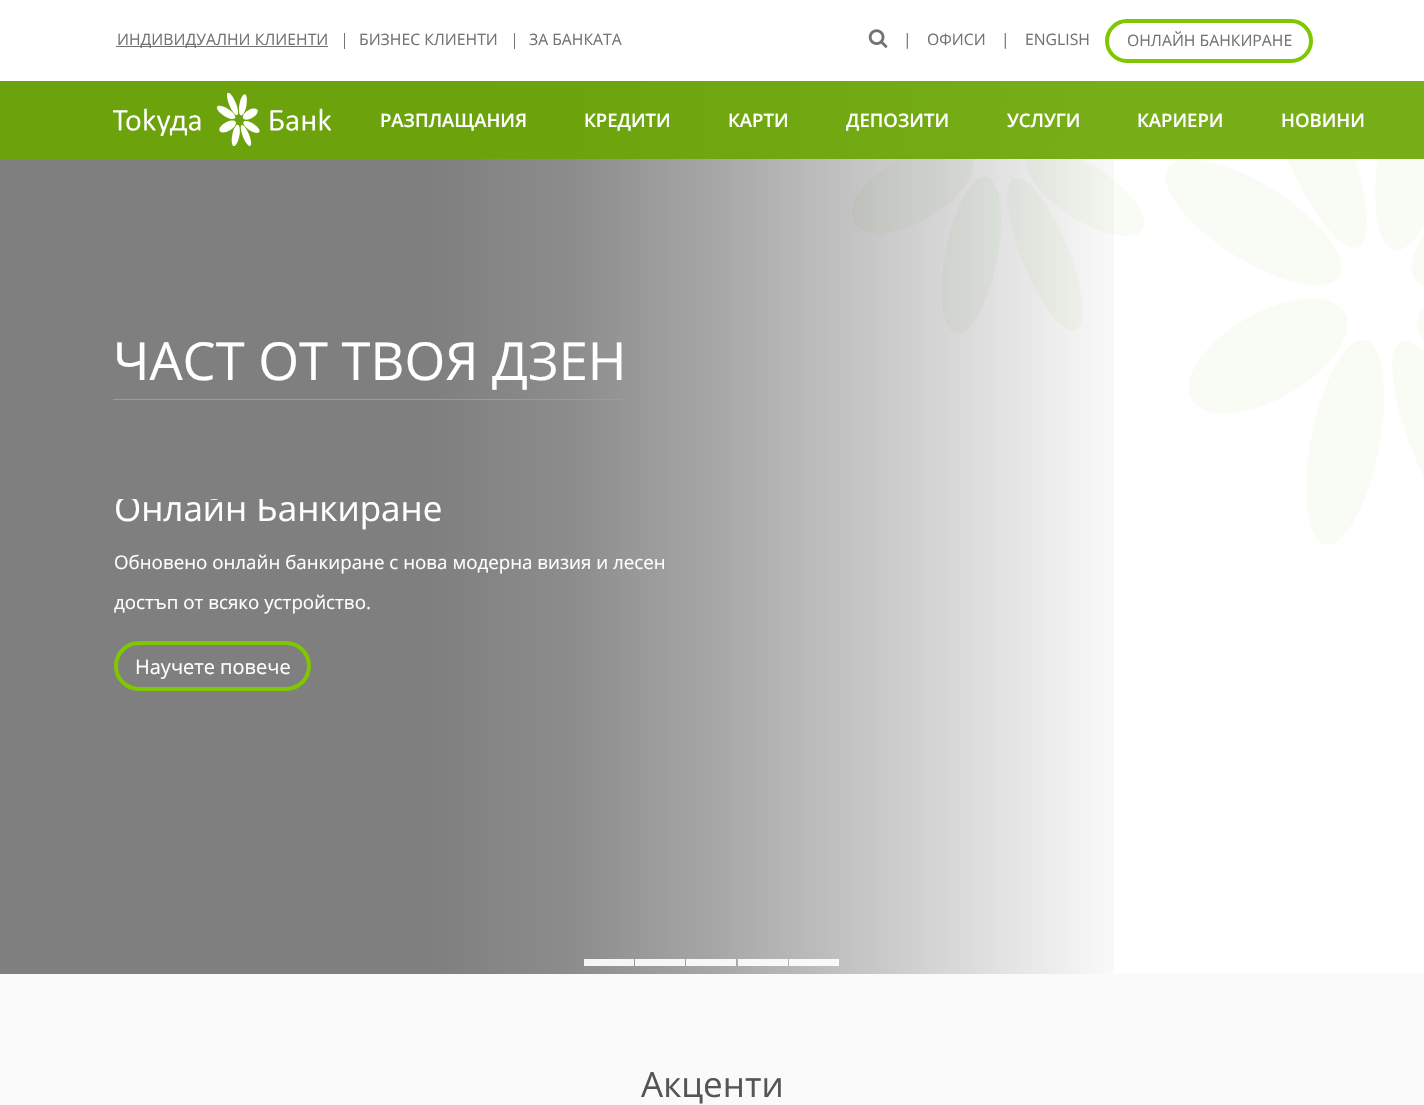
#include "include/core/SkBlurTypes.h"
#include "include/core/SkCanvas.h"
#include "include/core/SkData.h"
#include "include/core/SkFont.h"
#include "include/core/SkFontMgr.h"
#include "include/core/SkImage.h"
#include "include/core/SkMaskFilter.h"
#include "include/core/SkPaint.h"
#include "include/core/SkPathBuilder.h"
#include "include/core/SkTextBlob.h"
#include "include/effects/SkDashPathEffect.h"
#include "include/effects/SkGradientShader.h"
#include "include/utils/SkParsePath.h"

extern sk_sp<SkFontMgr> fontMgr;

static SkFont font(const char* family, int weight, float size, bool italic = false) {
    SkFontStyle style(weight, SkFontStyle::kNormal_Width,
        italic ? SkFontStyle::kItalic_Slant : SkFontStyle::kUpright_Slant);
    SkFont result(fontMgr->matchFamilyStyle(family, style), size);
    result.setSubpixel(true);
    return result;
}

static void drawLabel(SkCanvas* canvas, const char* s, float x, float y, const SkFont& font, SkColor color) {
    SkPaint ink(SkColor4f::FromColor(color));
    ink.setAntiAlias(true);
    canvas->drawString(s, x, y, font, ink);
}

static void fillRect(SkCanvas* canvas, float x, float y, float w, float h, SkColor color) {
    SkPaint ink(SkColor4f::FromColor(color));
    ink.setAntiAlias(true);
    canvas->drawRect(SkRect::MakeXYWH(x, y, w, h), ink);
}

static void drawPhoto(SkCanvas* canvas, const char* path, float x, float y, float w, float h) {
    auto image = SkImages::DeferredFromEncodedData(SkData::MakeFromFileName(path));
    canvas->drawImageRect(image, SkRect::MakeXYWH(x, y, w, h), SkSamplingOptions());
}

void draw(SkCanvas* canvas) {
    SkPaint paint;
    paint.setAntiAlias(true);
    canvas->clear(0xFFFFFFFF);
    fillRect(canvas, 344, 33, 1, 16, 0xFF737373);
    fillRect(canvas, 116, 46, 212, 1, 0xFF737373);
    SkFont font1 = font("Open Sans", 400, 15.75f);
    drawLabel(canvas, "ИНДИВИДУАЛНИ КЛИЕНТИ", 117, 45, font1, 0xFF737373);
    fillRect(canvas, 514, 33, 1, 16, 0xFF737373);
    drawLabel(canvas, "БИЗНЕС КЛИЕНТИ", 359, 45, font1, 0xFF737373);
    drawLabel(canvas, "ЗА БАНКАТА", 529, 45, font1, 0xFF737373);
    drawPhoto(canvas, "assets/img1.png", 868, 29, 20, 19);
    drawLabel(canvas, "|", 903, 45, font1, 0xFF737373);
    drawLabel(canvas, "ОФИСИ", 927, 45, font1, 0xFF737373);
    drawLabel(canvas, "|", 1001, 45, font1, 0xFF737373);
    drawLabel(canvas, "ENGLISH", 1025, 45, font1, 0xFF737373);
    paint.setStroke(true);
    paint.setStrokeWidth(4);
    paint.setColor(0xFF7FC700);
    canvas->drawRoundRect(SkRect::MakeXYWH(1107, 21, 204, 40), 20, 20, paint);
    drawLabel(canvas, "ОНЛАЙН БАНКИРАНЕ", 1127, 46, font1, 0xFF737373);
    drawPhoto(canvas, "assets/img3.png", 852, 90, 572, 455);
    paint.setStroke(false);
    {
        const SkColor colors[] = {0x80000000, 0x73000000, 0x66000000, 0x59000000, 0x00000000};
        const float stops[] = {0.3f, 0.4f, 0.45f, 0.5f, 0.8f};
        const SkPoint ends[] = {{0, 524}, {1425, 524}};
        paint.setShader(SkGradientShader::MakeLinear(ends, colors, stops, 5, SkTileMode::kClamp));
        paint.setAlpha(255);
    }
    canvas->drawRect(SkRect::MakeXYWH(0, 81, 1114, 893), paint);
    fillRect(canvas, 0, 81, 1424, 78, 0xE669A600);
    drawPhoto(canvas, "assets/img2.png", 113, 93, 218, 53);
    SkFont font2 = font("Open Sans", 600, 18.5f);
    drawLabel(canvas, "РАЗПЛАЩАНИЯ", 380, 127, font2, 0xFFFFFFFF);
    drawLabel(canvas, "КРЕДИТИ", 584, 127, font2, 0xFFFFFFFF);
    drawLabel(canvas, "КАРТИ", 728, 127, font2, 0xFFFFFFFF);
    drawLabel(canvas, "ДЕПОЗИТИ", 846, 127, font2, 0xFFFFFFFF);
    drawLabel(canvas, "УСЛУГИ", 1007, 127, font2, 0xFFFFFFFF);
    drawLabel(canvas, "КАРИЕРИ", 1137, 127, font2, 0xFFFFFFFF);
    drawLabel(canvas, "НОВИНИ", 1281, 127, font2, 0xFFFFFFFF);
    fillRect(canvas, 113, 399, 513, 1, 0xFF7FC700);
    SkFont font3 = font("Open Sans", 400, 52.5f);
    drawLabel(canvas, "ЧАСТ ОТ ТВОЯ ДЗЕН", 113, 380, font3, 0xFFFFFFFF);
    canvas->save();
    canvas->clipRect(SkRect::MakeXYWH(114, 499, 601, 289));
    SkFont font4 = font("Open Sans", 400, 35);
    drawLabel(canvas, "Онлайн Банкиране", 114, 521, font4, 0xFFFFFFFF);
    canvas->restore();
    SkFont font5 = font("Open Sans", 400, 18.75f);
    drawLabel(canvas, "Обновено онлайн банкиране с нова модерна визия и лесен", 114, 569, font5, 0xFFFFFFFF);
    drawLabel(canvas, "достъп от всяко устройство.", 114, 609, font5, 0xFFFFFFFF);
    paint.setStroke(true);
    paint.setShader(nullptr);
    paint.setColor(0xFF7FC700);
    canvas->drawRoundRect(SkRect::MakeXYWH(116, 643, 193, 46), 23, 23, paint);
    SkFont font6 = font("Open Sans", 400, 20);
    drawLabel(canvas, "Научете повече", 135, 674, font6, 0xFFFFFFFF);
    fillRect(canvas, 584, 959, 50, 7, 0xE6FFFFFF);
    fillRect(canvas, 635, 959, 50, 7, 0xE6FFFFFF);
    fillRect(canvas, 686, 959, 50, 7, 0xE6FFFFFF);
    fillRect(canvas, 738, 959, 50, 7, 0xE6FFFFFF);
    fillRect(canvas, 789, 959, 50, 7, 0xE6FFFFFF);
    fillRect(canvas, 0, 974, 1424, 131, 0xFFFAFAFA);
    drawLabel(canvas, "Акценти", 641, 1097, font4, 0xFF555555);
}
